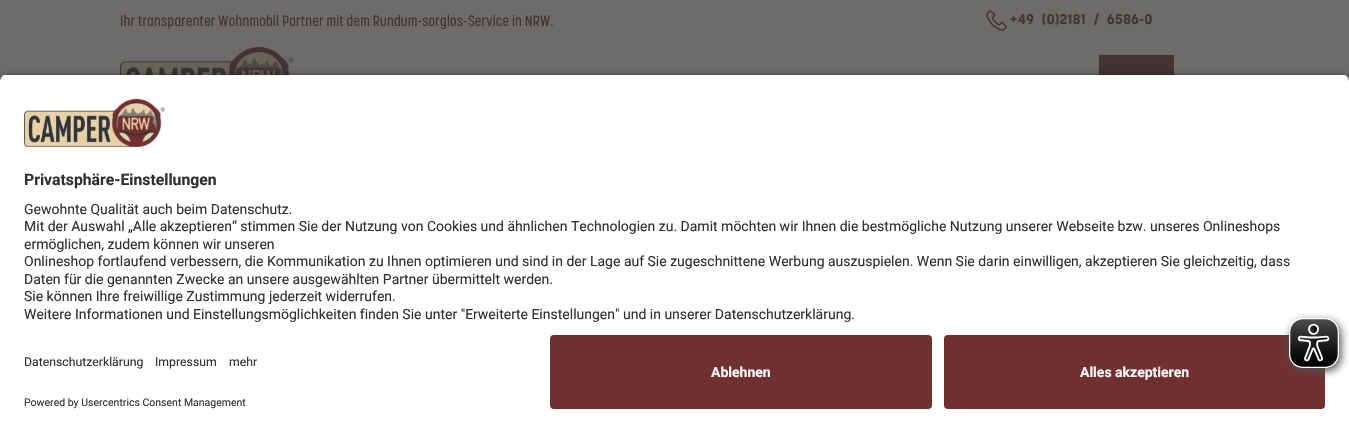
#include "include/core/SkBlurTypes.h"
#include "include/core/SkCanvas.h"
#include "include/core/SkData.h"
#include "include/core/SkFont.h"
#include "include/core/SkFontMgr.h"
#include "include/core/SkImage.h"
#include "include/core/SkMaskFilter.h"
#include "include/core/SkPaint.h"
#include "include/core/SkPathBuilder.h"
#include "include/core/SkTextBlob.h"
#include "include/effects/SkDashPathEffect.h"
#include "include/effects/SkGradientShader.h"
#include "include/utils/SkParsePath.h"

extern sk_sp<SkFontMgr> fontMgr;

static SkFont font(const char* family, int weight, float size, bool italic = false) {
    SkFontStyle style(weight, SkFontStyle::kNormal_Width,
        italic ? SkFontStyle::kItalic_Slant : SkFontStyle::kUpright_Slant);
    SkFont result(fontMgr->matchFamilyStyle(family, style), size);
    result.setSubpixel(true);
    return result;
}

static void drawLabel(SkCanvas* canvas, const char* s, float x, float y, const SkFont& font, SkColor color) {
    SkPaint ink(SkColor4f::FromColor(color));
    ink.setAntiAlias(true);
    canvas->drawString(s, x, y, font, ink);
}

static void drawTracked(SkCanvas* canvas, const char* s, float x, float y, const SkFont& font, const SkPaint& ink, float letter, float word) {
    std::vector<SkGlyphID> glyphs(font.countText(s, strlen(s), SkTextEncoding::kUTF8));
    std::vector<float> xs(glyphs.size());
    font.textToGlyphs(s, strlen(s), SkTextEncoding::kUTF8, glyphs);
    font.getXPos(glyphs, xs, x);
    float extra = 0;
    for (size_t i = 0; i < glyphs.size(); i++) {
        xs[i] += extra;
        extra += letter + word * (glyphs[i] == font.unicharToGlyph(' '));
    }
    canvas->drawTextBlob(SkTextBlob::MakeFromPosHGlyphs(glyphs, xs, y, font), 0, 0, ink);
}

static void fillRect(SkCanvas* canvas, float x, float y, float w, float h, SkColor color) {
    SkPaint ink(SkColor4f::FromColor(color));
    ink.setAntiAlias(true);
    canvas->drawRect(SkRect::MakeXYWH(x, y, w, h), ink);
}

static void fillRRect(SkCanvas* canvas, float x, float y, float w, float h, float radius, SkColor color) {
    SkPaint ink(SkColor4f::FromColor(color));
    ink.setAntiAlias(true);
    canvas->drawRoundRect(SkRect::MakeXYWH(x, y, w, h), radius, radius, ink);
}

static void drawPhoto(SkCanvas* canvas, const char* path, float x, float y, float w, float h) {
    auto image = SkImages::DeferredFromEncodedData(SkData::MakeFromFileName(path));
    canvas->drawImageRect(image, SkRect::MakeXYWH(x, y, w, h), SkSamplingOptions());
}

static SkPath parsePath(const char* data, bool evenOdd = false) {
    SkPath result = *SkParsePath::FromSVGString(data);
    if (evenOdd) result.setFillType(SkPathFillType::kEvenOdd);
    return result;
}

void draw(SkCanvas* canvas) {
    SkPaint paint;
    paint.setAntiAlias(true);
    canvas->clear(0xFF6E6C6A);
    SkFont font1 = font("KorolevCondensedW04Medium", 500, 15);
    paint.setColor(0xFF453232);
    drawTracked(canvas, "Ihr transparenter Wohnmobil Partner mit dem Rundum-sorglos-Service in NRW.", 120, 26, font1, paint, 0.2f, 0);
    drawPhoto(canvas, "assets/img1.png", 986, 10, 21, 21);
    SkFont font2 = font("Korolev", 700, 14);
    drawTracked(canvas, "+49", 1010, 24, font2, paint, 0.5f, 0);
    drawTracked(canvas, "(0)2181", 1042, 24, font2, paint, 0.5f, 0);
    drawTracked(canvas, "/", 1094, 24, font2, paint, 0.5f, 0);
    drawTracked(canvas, "6586-0", 1107, 24, font2, paint, 0.5f, 0);
    drawPhoto(canvas, "assets/img2.png", 120, 47, 174, 28);
    fillRect(canvas, 1099, 55, 75, 20, 0xFF453232);
    paint.setColor(0xCC000000);
    paint.setMaskFilter(SkMaskFilter::MakeBlur(kNormal_SkBlurStyle, 3.5f));
    canvas->drawRoundRect(SkRect::MakeXYWH(0, 77, 1349, 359), 8, 8, paint);
    paint.setMaskFilter(nullptr);
    canvas->save();
    canvas->clipPath(parsePath("M8 74H1341C1345.5 74 1349 77.5 1349 82V327H0V82C0 77.5 3.5 74 8 74Z"), true);
    fillRect(canvas, 0, 75, 1349, 252, 0xFFFFFFFF);
    canvas->restore();
    drawPhoto(canvas, "assets/img3.png", 24, 98, 142, 49);
    SkFont font3 = font("Roboto", 700, 15.75f);
    drawLabel(canvas, "Privatsphäre-Einstellungen", 24, 185, font3, 0xFF303030);
    SkFont font4 = font("Roboto", 400, 14);
    drawLabel(canvas, "Gewohnte Qualität auch beim Datenschutz.", 24, 214, font4, 0xFF303030);
    drawLabel(canvas, "Mit der Auswahl „Alle akzeptieren“ stimmen Sie der Nutzung von Cookies und ähnlichen Technologien zu. Damit möchten wir Ihnen die bestmögliche Nutzung unserer Webseite bzw. unseres Onlineshops", 24, 231, font4, 0xFF303030);
    drawLabel(canvas, "ermöglichen, zudem können wir unseren", 24, 249, font4, 0xFF303030);
    drawLabel(canvas, "Onlineshop fortlaufend verbessern, die Kommunikation zu Ihnen optimieren und sind in der Lage auf Sie zugeschnittene Werbung auszuspielen. Wenn Sie darin einwilligen, akzeptieren Sie gleichzeitig, dass", 24, 266, font4, 0xFF303030);
    drawLabel(canvas, "Daten für die genannten Zwecke an unsere ausgewählten Partner übermittelt werden.", 24, 284, font4, 0xFF303030);
    drawLabel(canvas, "Sie können Ihre freiwillige Zustimmung jederzeit widerrufen.", 24, 301, font4, 0xFF303030);
    drawLabel(canvas, "Weitere Informationen und Einstellungsmöglichkeiten finden Sie unter \"Erweiterte Einstellungen\" und in unserer Datenschutzerklärung.", 24, 319, font4, 0xFF303030);
    fillRect(canvas, 0, 327, 1349, 106, 0xFFFFFFFF);
    SkFont font5 = font("Roboto", 400, 12.25f);
    drawLabel(canvas, "Datenschutzerklärung", 24, 366, font5, 0xFF303030);
    drawLabel(canvas, "Impressum", 155, 366, font5, 0xFF303030);
    drawLabel(canvas, "mehr", 229, 366, font5, 0xFF303030);
    SkFont font6 = font("Roboto", 400, 10.5f);
    drawLabel(canvas, "Powered by Usercentrics Consent Management", 24, 406, font6, 0xFF303030);
    fillRRect(canvas, 550, 335, 382, 74, 4, 0xFF703030);
    SkFont font7 = font("Roboto", 700, 14);
    drawLabel(canvas, "Ablehnen", 711, 377, font7, 0xFFFAFAFA);
    fillRRect(canvas, 944, 335, 381, 74, 4, 0xFF703030);
    drawLabel(canvas, "Alles akzeptieren", 1080, 377, font7, 0xFFFAFAFA);
    drawPhoto(canvas, "assets/img4.png", 1283, 313, 66, 66);
}
